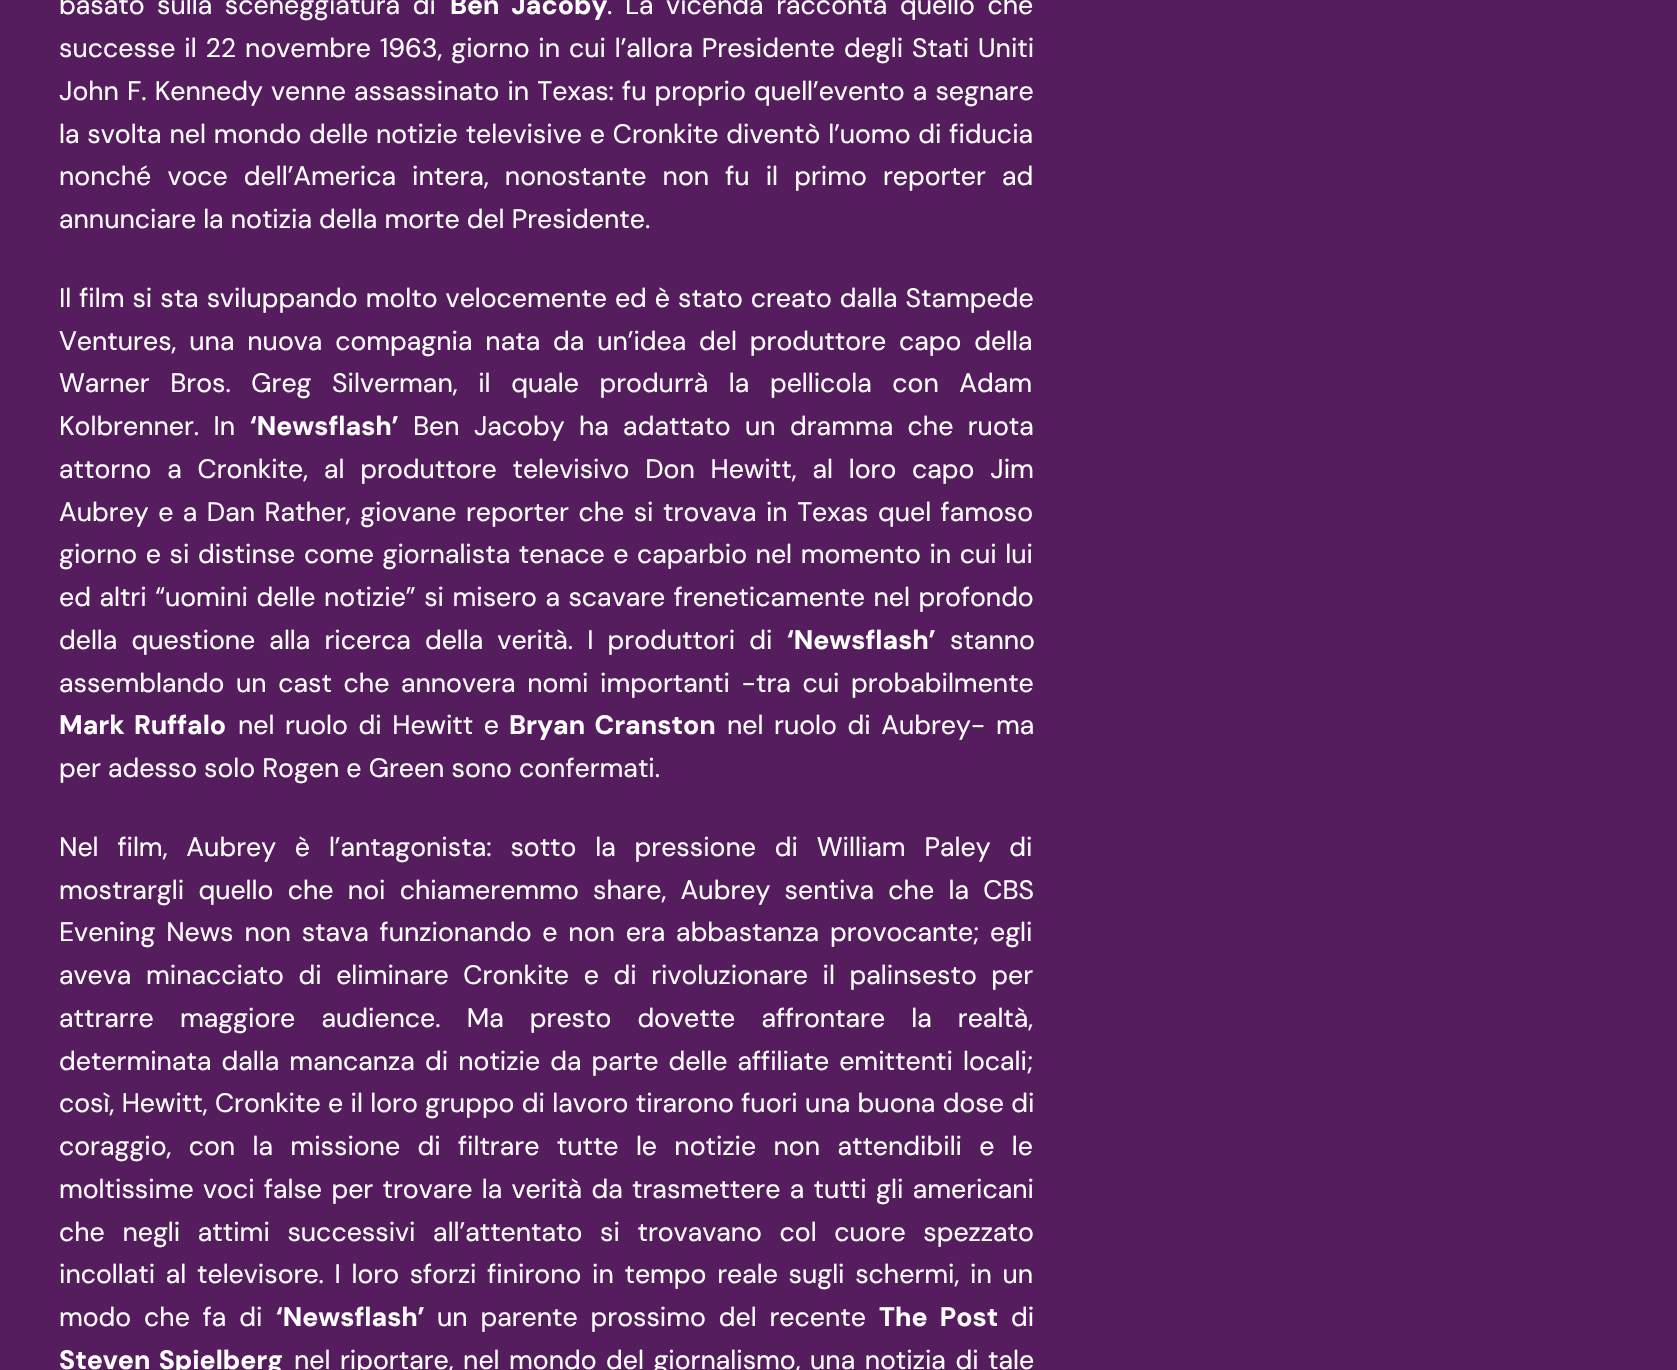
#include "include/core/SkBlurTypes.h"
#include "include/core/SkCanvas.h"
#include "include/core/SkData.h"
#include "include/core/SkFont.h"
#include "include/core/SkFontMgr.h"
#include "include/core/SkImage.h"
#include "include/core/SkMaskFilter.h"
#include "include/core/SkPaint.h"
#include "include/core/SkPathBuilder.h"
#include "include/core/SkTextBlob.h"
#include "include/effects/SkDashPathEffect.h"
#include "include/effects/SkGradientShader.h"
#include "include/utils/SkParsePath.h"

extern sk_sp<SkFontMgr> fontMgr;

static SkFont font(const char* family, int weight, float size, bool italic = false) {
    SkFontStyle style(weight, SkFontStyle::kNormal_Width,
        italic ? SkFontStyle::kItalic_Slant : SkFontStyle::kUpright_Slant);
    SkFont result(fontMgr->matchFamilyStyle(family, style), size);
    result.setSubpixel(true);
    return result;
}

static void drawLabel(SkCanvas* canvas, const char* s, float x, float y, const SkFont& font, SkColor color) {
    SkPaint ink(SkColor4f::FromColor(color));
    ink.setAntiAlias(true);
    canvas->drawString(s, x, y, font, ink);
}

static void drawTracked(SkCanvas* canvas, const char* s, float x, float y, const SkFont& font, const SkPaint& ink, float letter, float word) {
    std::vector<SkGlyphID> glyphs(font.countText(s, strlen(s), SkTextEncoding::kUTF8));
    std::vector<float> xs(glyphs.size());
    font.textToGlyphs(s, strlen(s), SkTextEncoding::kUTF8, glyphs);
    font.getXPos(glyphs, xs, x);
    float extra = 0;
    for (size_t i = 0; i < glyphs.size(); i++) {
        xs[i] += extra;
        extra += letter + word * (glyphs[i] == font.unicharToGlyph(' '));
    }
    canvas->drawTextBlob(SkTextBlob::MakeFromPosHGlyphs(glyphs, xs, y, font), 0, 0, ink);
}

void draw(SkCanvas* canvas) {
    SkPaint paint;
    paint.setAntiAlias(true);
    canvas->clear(0xFF551C5E);
    SkFont font1 = font("DM Sans", 400, 26.7f);
    paint.setColor(0xFFFFFFFF);
    drawTracked(canvas, "basato sulla sceneggiatura di", 59, 14, font1, paint, 0, 5.5f);
    SkFont font2 = font("DM Sans", 700, 26.7f);
    drawTracked(canvas, "Ben Jacoby", 450, 14, font2, paint, 0, 5.5f);
    drawTracked(canvas, ". La vicenda racconta quello che", 607, 14, font1, paint, 0, 5.5f);
    drawTracked(canvas, "successe il 22 novembre 1963, giorno in cui l’allora Presidente degli Stati Uniti", 59, 57, font1, paint, 0, 1.75f);
    drawTracked(canvas, "John F. Kennedy venne assassinato in Texas: fu proprio quell’evento a segnare", 59, 100, font1, paint, 0, 1);
    drawTracked(canvas, "la svolta nel mondo delle notizie televisive e Cronkite diventò l’uomo di fiducia", 59, 143, font1, paint, 0, 0.75f);
    drawTracked(canvas, "nonché voce dell’America intera, nonostante non fu il primo reporter ad", 59, 185, font1, paint, 0, 9);
    drawLabel(canvas, "annunciare la notizia della morte del Presidente.", 59, 228, font1, 0xFFFFFFFF);
    drawTracked(canvas, "Il film si sta sviluppando molto velocemente ed è stato creato dalla Stampede", 59, 307, font1, paint, 0, 0.9f);
    drawTracked(canvas, "Ventures, una nuova compagnia nata da un’idea del produttore capo della", 59, 350, font1, paint, 0, 5.75f);
    drawTracked(canvas, "Warner Bros. Greg Silverman, il quale produrrà la pellicola con Adam", 59, 392, font1, paint, 0, 13.5f);
    drawTracked(canvas, "Kolbrenner. In", 59, 435, font1, paint, 0, 7.25f);
    drawLabel(canvas, "‘Newsflash’", 250, 435, font2, 0xFFFFFFFF);
    drawTracked(canvas, "Ben Jacoby ha adattato un dramma che ruota", 413, 435, font1, paint, 0, 7.25f);
    drawTracked(canvas, "attorno a Cronkite, al produttore televisivo Don Hewitt, al loro capo Jim", 59, 478, font1, paint, 0, 8.75f);
    drawTracked(canvas, "Aubrey e a Dan Rather, giovane reporter che si trovava in Texas quel famoso", 59, 521, font1, paint, 0, 2.4f);
    drawTracked(canvas, "giorno e si distinse come giornalista tenace e caparbio nel momento in cui lui", 59, 563, font1, paint, 0, 1.5f);
    drawTracked(canvas, "ed altri “uomini delle notizie” si misero a scavare freneticamente nel profondo", 59, 606, font1, paint, 0, 1.4f);
    drawTracked(canvas, "della questione alla ricerca della verità. I produttori di", 59, 649, font1, paint, 0, 7);
    drawLabel(canvas, "‘Newsflash’", 787, 649, font2, 0xFFFFFFFF);
    drawLabel(canvas, "stanno", 950, 649, font1, 0xFFFFFFFF);
    drawTracked(canvas, "assemblando un cast che annovera nomi importanti -tra cui probabilmente", 59, 692, font1, paint, 0, 4.5f);
    drawTracked(canvas, "Mark Ruffalo", 59, 734, font2, paint, 0, 3);
    drawTracked(canvas, "nel ruolo di Hewitt e", 238, 734, font1, paint, 0, 3.5f);
    drawTracked(canvas, "Bryan Cranston", 509, 734, font2, paint, 0, 3);
    drawTracked(canvas, "nel ruolo di Aubrey- ma", 727, 734, font1, paint, 0, 3.5f);
    drawLabel(canvas, "per adesso solo Rogen e Green sono confermati.", 59, 777, font1, 0xFFFFFFFF);
    drawTracked(canvas, "Nel film, Aubrey è l’antagonista: sotto la pressione di William Paley di", 59, 856, font1, paint, 0, 11.75f);
    drawTracked(canvas, "mostrargli quello che noi chiameremmo share, Aubrey sentiva che la CBS", 59, 899, font1, paint, 0, 7.25f);
    drawTracked(canvas, "Evening News non stava funzionando e non era abbastanza provocante; egli", 59, 941, font1, paint, 0, 3.75f);
    drawTracked(canvas, "aveva minacciato di eliminare Cronkite e di rivoluzionare il palinsesto per", 59, 984, font1, paint, 0, 7.5f);
    drawTracked(canvas, "attrarre maggiore audience. Ma presto dovette affrontare la realtà,", 59, 1027, font1, paint, 0, 19);
    drawTracked(canvas, "determinata dalla mancanza di notizie da parte delle affiliate emittenti locali;", 59, 1070, font1, paint, 0, 3);
    drawTracked(canvas, "così, Hewitt, Cronkite e il loro gruppo di lavoro tirarono fuori una buona dose di", 59, 1112, font1, paint, 0, 0.25f);
    drawTracked(canvas, "coraggio, con la missione di filtrare tutte le notizie non attendibili e le", 59, 1155, font1, paint, 0, 10.25f);
    drawTracked(canvas, "moltissime voci false per trovare la verità da trasmettere a tutti gli americani", 59, 1198, font1, paint, 0, 2.25f);
    drawTracked(canvas, "che negli attimi successivi all’attentato si trovavano col cuore spezzato", 59, 1241, font1, paint, 0, 10.5f);
    drawTracked(canvas, "incollati al televisore. I loro sforzi finirono in tempo reale sugli schermi, in un", 59, 1283, font1, paint, 0, 3.6f);
    drawTracked(canvas, "modo che fa di", 59, 1326, font1, paint, 0, 5.75f);
    drawLabel(canvas, "‘Newsflash’", 276, 1326, font2, 0xFFFFFFFF);
    drawTracked(canvas, "un parente prossimo del recente", 437, 1326, font1, paint, 0, 5.75f);
    drawTracked(canvas, "The Post", 879, 1326, font2, paint, 0, 6);
    drawLabel(canvas, "di", 1011, 1326, font1, 0xFFFFFFFF);
    drawTracked(canvas, "Steven Spielberg", 59, 1369, font2, paint, 0, 2);
    drawTracked(canvas, "nel riportare, nel mondo del giornalismo, una notizia di tale", 294, 1369, font1, paint, 0, 2.4f);
}
